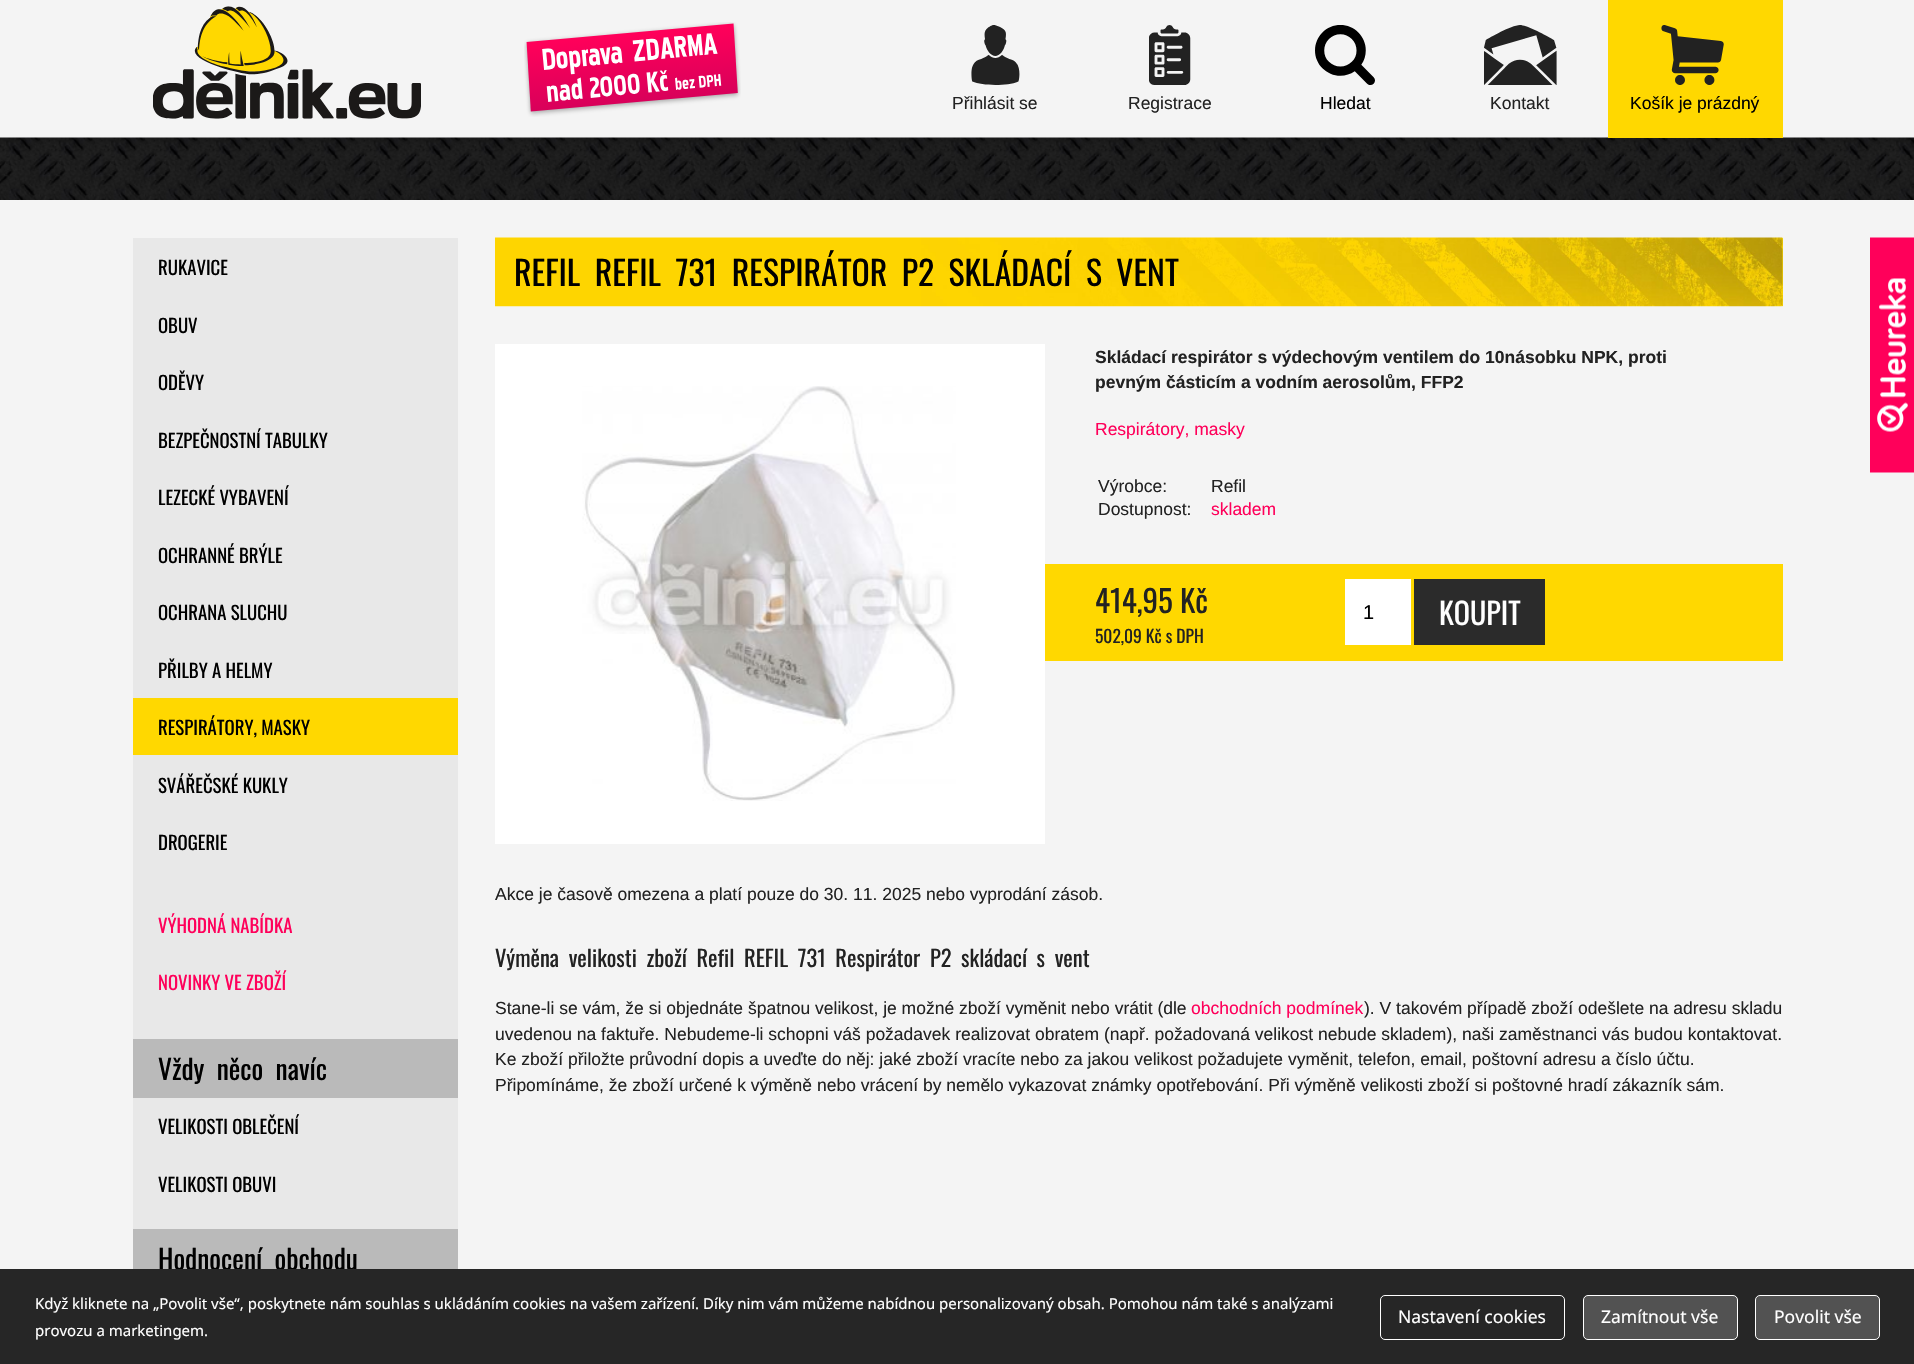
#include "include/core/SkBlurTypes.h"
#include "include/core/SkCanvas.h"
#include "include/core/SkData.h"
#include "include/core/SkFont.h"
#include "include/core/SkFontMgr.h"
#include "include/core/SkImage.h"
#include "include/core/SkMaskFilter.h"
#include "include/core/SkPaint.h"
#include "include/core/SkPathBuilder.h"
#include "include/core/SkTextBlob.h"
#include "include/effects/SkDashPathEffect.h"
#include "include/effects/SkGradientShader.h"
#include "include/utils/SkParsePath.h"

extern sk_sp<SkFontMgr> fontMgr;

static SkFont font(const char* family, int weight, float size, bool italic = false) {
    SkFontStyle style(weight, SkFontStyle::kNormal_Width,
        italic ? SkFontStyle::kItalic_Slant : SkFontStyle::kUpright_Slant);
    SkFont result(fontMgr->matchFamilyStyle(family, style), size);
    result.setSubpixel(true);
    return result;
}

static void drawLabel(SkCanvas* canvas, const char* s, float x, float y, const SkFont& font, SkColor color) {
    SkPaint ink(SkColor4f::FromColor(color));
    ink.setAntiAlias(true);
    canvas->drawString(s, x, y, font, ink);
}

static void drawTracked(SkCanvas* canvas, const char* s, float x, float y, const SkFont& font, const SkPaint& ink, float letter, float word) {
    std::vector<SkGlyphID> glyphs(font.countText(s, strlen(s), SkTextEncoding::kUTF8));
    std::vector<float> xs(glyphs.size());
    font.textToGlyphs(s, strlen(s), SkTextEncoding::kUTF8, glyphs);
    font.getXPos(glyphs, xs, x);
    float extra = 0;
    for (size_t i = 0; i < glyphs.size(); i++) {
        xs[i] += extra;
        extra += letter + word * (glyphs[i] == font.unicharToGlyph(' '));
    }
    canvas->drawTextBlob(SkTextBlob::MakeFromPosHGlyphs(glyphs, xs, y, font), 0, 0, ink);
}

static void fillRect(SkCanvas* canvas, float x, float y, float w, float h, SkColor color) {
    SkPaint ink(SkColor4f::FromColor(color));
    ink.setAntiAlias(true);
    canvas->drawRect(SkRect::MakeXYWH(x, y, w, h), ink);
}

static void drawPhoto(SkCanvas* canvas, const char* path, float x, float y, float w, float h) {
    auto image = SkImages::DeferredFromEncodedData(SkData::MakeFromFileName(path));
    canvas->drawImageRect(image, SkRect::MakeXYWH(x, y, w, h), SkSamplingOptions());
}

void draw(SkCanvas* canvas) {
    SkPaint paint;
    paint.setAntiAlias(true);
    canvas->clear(0xFFF4F4F4);
    drawPhoto(canvas, "assets/img1.png", 153, 6, 268, 113);
    drawPhoto(canvas, "assets/img2.png", 524, 22, 217, 95);
    drawPhoto(canvas, "assets/img3.png", 971, 25, 49, 60);
    SkFont font1 = font("Liberation Sans", 400, 17.5f);
    drawLabel(canvas, "Přihlásit se", 952, 109, font1, 0xFF222222);
    drawPhoto(canvas, "assets/img4.png", 1149, 25, 42, 60);
    drawLabel(canvas, "Registrace", 1128, 109, font1, 0xFF222222);
    drawPhoto(canvas, "assets/img5.png", 1315, 25, 60, 60);
    drawLabel(canvas, "Hledat", 1320, 109, font1, 0xFF000000);
    drawPhoto(canvas, "assets/img6.png", 1484, 25, 73, 60);
    drawLabel(canvas, "Kontakt", 1490, 109, font1, 0xFF222222);
    drawPhoto(canvas, "assets/img8.png", 0, 137, 1914, 63);
    fillRect(canvas, 1608, 0, 175, 138, 0xFFFFD800);
    drawPhoto(canvas, "assets/img7.png", 1661, 25, 63, 60);
    drawLabel(canvas, "Košík je prázdný", 1630, 109, font1, 0xFF000000);
    fillRect(canvas, 133, 238, 325, 991, 0xFFE8E8E8);
    SkFont font2 = font("Oswald", 400, 18.75f);
    drawLabel(canvas, "RUKAVICE", 158, 275, font2, 0xFF000000);
    drawLabel(canvas, "OBUV", 158, 333, font2, 0xFF000000);
    drawLabel(canvas, "ODĚVY", 158, 390, font2, 0xFF000000);
    drawLabel(canvas, "BEZPEČNOSTNÍ TABULKY", 158, 448, font2, 0xFF000000);
    drawLabel(canvas, "LEZECKÉ VYBAVENÍ", 158, 505, font2, 0xFF000000);
    drawLabel(canvas, "OCHRANNÉ BRÝLE", 158, 563, font2, 0xFF000000);
    drawLabel(canvas, "OCHRANA SLUCHU", 158, 620, font2, 0xFF000000);
    drawLabel(canvas, "PŘILBY A HELMY", 158, 678, font2, 0xFF000000);
    fillRect(canvas, 133, 698, 325, 57, 0xFFFFD800);
    drawLabel(canvas, "RESPIRÁTORY, MASKY", 158, 735, font2, 0xFF000000);
    drawLabel(canvas, "SVÁŘEČSKÉ KUKLY", 158, 793, font2, 0xFF000000);
    drawLabel(canvas, "DROGERIE", 158, 850, font2, 0xFF000000);
    drawLabel(canvas, "VÝHODNÁ NABÍDKA", 158, 933, font2, 0xFFFF005A);
    drawLabel(canvas, "NOVINKY VE ZBOŽÍ", 158, 990, font2, 0xFFFF005A);
    fillRect(canvas, 133, 1039, 325, 59, 0xFFBABABA);
    SkFont font3 = font("Oswald", 400, 27.5f);
    paint.setColor(0xFF000000);
    drawTracked(canvas, "Vždy něco navíc", 158, 1080, font3, paint, 0, 6);
    drawLabel(canvas, "VELIKOSTI OBLEČENÍ", 158, 1134, font2, 0xFF000000);
    drawLabel(canvas, "VELIKOSTI OBUVI", 158, 1192, font2, 0xFF000000);
    fillRect(canvas, 133, 1229, 325, 40, 0xFFBABABA);
    drawTracked(canvas, "Hodnocení obchodu", 158, 1270, font3, paint, 0, 6);
    fillRect(canvas, 1782, 238, 1, 68, 0xFFFFD800);
    drawPhoto(canvas, "assets/img9.png", 495, 237, 1288, 70);
    SkFont font4 = font("Oswald", 400, 33.75f);
    drawTracked(canvas, "REFIL REFIL 731 RESPIRÁTOR P2 SKLÁDACÍ S VENT", 514, 286, font4, paint, 0, 6.75f);
    fillRect(canvas, 495, 344, 550, 500, 0xFFFFFFFF);
    drawPhoto(canvas, "assets/img10.png", 582, 386, 374, 415);
    SkFont font5 = font("Liberation Sans", 700, 17.5f);
    drawLabel(canvas, "Skládací respirátor s výdechovým ventilem do 10násobku NPK, proti", 1095, 363, font5, 0xFF222222);
    drawLabel(canvas, "pevným částicím a vodním aerosolům, FFP2", 1095, 388, font5, 0xFF222222);
    drawLabel(canvas, "Respirátory, masky", 1095, 435, font1, 0xFFFF005A);
    drawLabel(canvas, "Výrobce:", 1098, 492, font1, 0xFF222222);
    drawLabel(canvas, "Refil", 1211, 492, font1, 0xFF222222);
    drawLabel(canvas, "Dostupnost:", 1098, 515, font1, 0xFF222222);
    drawLabel(canvas, "skladem", 1211, 515, font1, 0xFFFF005A);
    fillRect(canvas, 1045, 564, 738, 97, 0xFFFFD800);
    SkFont font6 = font("Oswald", 400, 31);
    drawLabel(canvas, "414,95 Kč", 1095, 613, font6, 0xFF222222);
    SkFont font7 = font("Oswald", 400, 17.5f);
    drawLabel(canvas, "502,09 Kč s DPH", 1095, 643, font7, 0xFF222222);
    fillRect(canvas, 1345, 579, 66, 66, 0xFFFFFFFF);
    SkFont font8 = font("Liberation Sans", 400, 20);
    drawLabel(canvas, "1", 1363, 619, font8, 0xFF000000);
    fillRect(canvas, 1414, 579, 131, 66, 0xFF2B2B2B);
    SkFont font9 = font("Oswald", 400, 30);
    drawLabel(canvas, "KOUPIT", 1439, 625, font9, 0xFFFFFFFF);
    drawLabel(canvas, "Akce je časově omezena a platí pouze do 30. 11. 2025 nebo vyprodání zásob.", 495, 900, font1, 0xFF222222);
    SkFont font10 = font("Oswald", 400, 22.5f);
    paint.setColor(0xFF222222);
    drawTracked(canvas, "Výměna velikosti zboží Refil REFIL 731 Respirátor P2 skládací s vent", 495, 967, font10, paint, 0, 4.5f);
    drawLabel(canvas, "Stane-li se vám, že si objednáte špatnou velikost, je možné zboží vyměnit nebo vrátit (dle", 495, 1014, font1, 0xFF222222);
    drawLabel(canvas, "obchodních podmínek", 1191, 1014, font1, 0xFFFF005A);
    drawLabel(canvas, "). V takovém případě zboží odešlete na adresu skladu", 1364, 1014, font1, 0xFF222222);
    drawLabel(canvas, "uvedenou na faktuře. Nebudeme-li schopni váš požadavek realizovat obratem (např. požadovaná velikost nebude skladem), naši zaměstnanci vás budou kontaktovat.", 495, 1040, font1, 0xFF222222);
    drawLabel(canvas, "Ke zboží přiložte průvodní dopis a uveďte do něj: jaké zboží vracíte nebo za jakou velikost požadujete vyměnit, telefon, email, poštovní adresu a číslo účtu.", 495, 1065, font1, 0xFF222222);
    drawLabel(canvas, "Připomínáme, že zboží určené k výměně nebo vrácení by nemělo vykazovat známky opotřebování. Při výměně velikosti zboží si poštovné hradí zákazník sám.", 495, 1091, font1, 0xFF222222);
    drawPhoto(canvas, "assets/img11.png", 1870, 237, 44, 236);
    fillRect(canvas, 0, 1269, 1914, 95, 0xFF262626);
    SkFont font11 = font("Noto Sans", 400, 15);
    drawLabel(canvas, "Když kliknete na „Povolit vše“, poskytnete nám souhlas s ukládáním cookies na vašem zařízení. Díky nim vám můžeme nabídnou personalizovaný obsah. Pomohou nám také s analýzami", 35, 1309, font11, 0xFFFFFFFF);
    drawLabel(canvas, "provozu a marketingem.", 35, 1336, font11, 0xFFFFFFFF);
    paint.setStroke(true);
    paint.setStrokeWidth(1);
    paint.setColor(0xFFFFFFFF);
    canvas->drawRoundRect(SkRect::MakeXYWH(1380.5f, 1295.5f, 184, 44), 4.5f, 4.5f, paint);
    SkFont font12 = font("Noto Sans", 400, 17.5f);
    drawLabel(canvas, "Nastavení cookies", 1398, 1323, font12, 0xFFFFFFFF);
    paint.setStroke(false);
    paint.setColor(0xFF525252);
    canvas->drawRoundRect(SkRect::MakeXYWH(1583.5f, 1295.5f, 154, 44), 4.5f, 4.5f, paint);
    paint.setStroke(true);
    paint.setColor(0xFFFFFFFF);
    canvas->drawRoundRect(SkRect::MakeXYWH(1583.5f, 1295.5f, 154, 44), 4.5f, 4.5f, paint);
    drawLabel(canvas, "Zamítnout vše", 1601, 1323, font12, 0xFFFFFFFF);
    paint.setStroke(false);
    paint.setColor(0xFF525252);
    canvas->drawRoundRect(SkRect::MakeXYWH(1755.5f, 1295.5f, 124, 44), 4.5f, 4.5f, paint);
    paint.setStroke(true);
    paint.setColor(0xFFFFFFFF);
    canvas->drawRoundRect(SkRect::MakeXYWH(1755.5f, 1295.5f, 124, 44), 4.5f, 4.5f, paint);
    drawLabel(canvas, "Povolit vše", 1774, 1323, font12, 0xFFFFFFFF);
}
